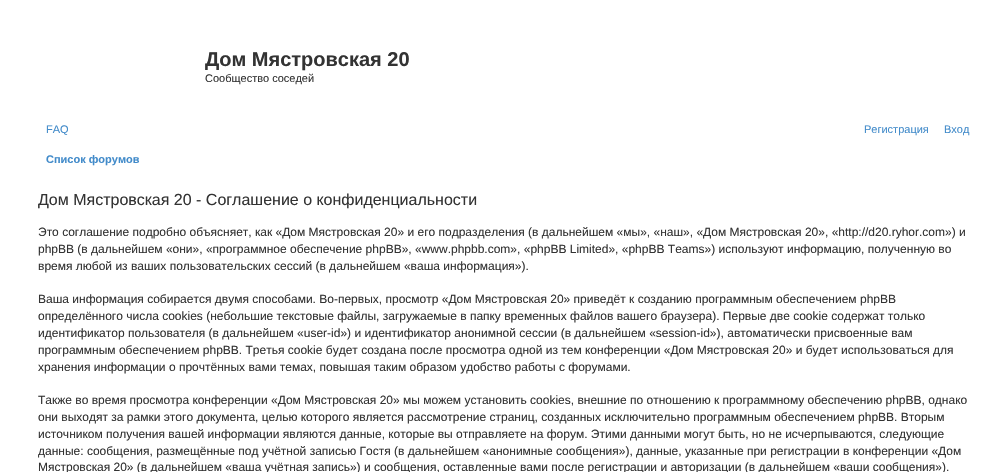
#include "include/core/SkBlurTypes.h"
#include "include/core/SkCanvas.h"
#include "include/core/SkData.h"
#include "include/core/SkFont.h"
#include "include/core/SkFontMgr.h"
#include "include/core/SkImage.h"
#include "include/core/SkMaskFilter.h"
#include "include/core/SkPaint.h"
#include "include/core/SkPathBuilder.h"
#include "include/core/SkTextBlob.h"
#include "include/effects/SkDashPathEffect.h"
#include "include/effects/SkGradientShader.h"
#include "include/utils/SkParsePath.h"

extern sk_sp<SkFontMgr> fontMgr;

static SkFont font(const char* family, int weight, float size, bool italic = false) {
    SkFontStyle style(weight, SkFontStyle::kNormal_Width,
        italic ? SkFontStyle::kItalic_Slant : SkFontStyle::kUpright_Slant);
    SkFont result(fontMgr->matchFamilyStyle(family, style), size);
    result.setSubpixel(true);
    return result;
}

static void drawLabel(SkCanvas* canvas, const char* s, float x, float y, const SkFont& font, SkColor color) {
    SkPaint ink(SkColor4f::FromColor(color));
    ink.setAntiAlias(true);
    canvas->drawString(s, x, y, font, ink);
}

void draw(SkCanvas* canvas) {
    SkPaint paint;
    paint.setAntiAlias(true);
    canvas->clear(0xFFFFFFFF);
    SkFont font1 = font("Liberation Sans", 700, 20);
    drawLabel(canvas, "Дом Мястровская 20", 205, 66, font1, 0xFF333333);
    SkFont font2 = font("Liberation Sans", 400, 11);
    drawLabel(canvas, "Сообщество соседей", 205, 82, font2, 0xFF333333);
    drawLabel(canvas, "FAQ", 46, 133, font2, 0xFF428BCA);
    drawLabel(canvas, "Регистрация", 864, 133, font2, 0xFF428BCA);
    drawLabel(canvas, "Вход", 944, 133, font2, 0xFF428BCA);
    SkFont font3 = font("Liberation Sans", 700, 11);
    drawLabel(canvas, "Список форумов", 46, 163, font3, 0xFF428BCA);
    SkFont font4 = font("Liberation Sans", 400, 16);
    drawLabel(canvas, "Дом Мястровская 20 - Соглашение о конфиденциальности", 38, 205, font4, 0xFF333333);
    SkFont font5 = font("Liberation Sans", 400, 12);
    drawLabel(canvas, "Это соглашение подробно объясняет, как «Дом Мястровская 20» и его подразделения (в дальнейшем «мы», «наш», «Дом Мястровская 20», «http://d20.ryhor.com») и", 38, 236, font5, 0xFF333333);
    drawLabel(canvas, "phpBB (в дальнейшем «они», «программное обеспечение phpBB», «www.phpbb.com», «phpBB Limited», «phpBB Teams») используют информацию, полученную во", 38, 253, font5, 0xFF333333);
    drawLabel(canvas, "время любой из ваших пользовательских сессий (в дальнейшем «ваша информация»).", 38, 270, font5, 0xFF333333);
    drawLabel(canvas, "Ваша информация собирается двумя способами. Во-первых, просмотр «Дом Мястровская 20» приведёт к созданию программным обеспечением phpBB", 38, 303, font5, 0xFF333333);
    drawLabel(canvas, "определённого числа cookies (небольшие текстовые файлы, загружаемые в папку временных файлов вашего браузера). Первые две cookie содержат только", 38, 320, font5, 0xFF333333);
    drawLabel(canvas, "идентификатор пользователя (в дальнейшем «user-id») и идентификатор анонимной сессии (в дальнейшем «session-id»), автоматически присвоенные вам", 38, 337, font5, 0xFF333333);
    drawLabel(canvas, "программным обеспечением phpBB. Третья cookie будет создана после просмотра одной из тем конференции «Дом Мястровская 20» и будет использоваться для", 38, 354, font5, 0xFF333333);
    drawLabel(canvas, "хранения информации о прочтённых вами темах, повышая таким образом удобство работы с форумами.", 38, 371, font5, 0xFF333333);
    drawLabel(canvas, "Также во время просмотра конференции «Дом Мястровская 20» мы можем установить cookies, внешние по отношению к программному обеспечению phpBB, однако", 38, 404, font5, 0xFF333333);
    drawLabel(canvas, "они выходят за рамки этого документа, целью которого является рассмотрение страниц, созданных исключительно программным обеспечением phpBB. Вторым", 38, 421, font5, 0xFF333333);
    drawLabel(canvas, "источником получения вашей информации являются данные, которые вы отправляете на форум. Этими данными могут быть, но не исчерпываются, следующие", 38, 438, font5, 0xFF333333);
    drawLabel(canvas, "данные: сообщения, размещённые под учётной записью Гостя (в дальнейшем «анонимные сообщения»), данные, указанные при регистрации в конференции «Дом", 38, 455, font5, 0xFF333333);
    drawLabel(canvas, "Мястровская 20» (в дальнейшем «ваша учётная запись») и сообщения, оставленные вами после регистрации и авторизации (в дальнейшем «ваши сообщения»).", 38, 471, font5, 0xFF333333);
}
